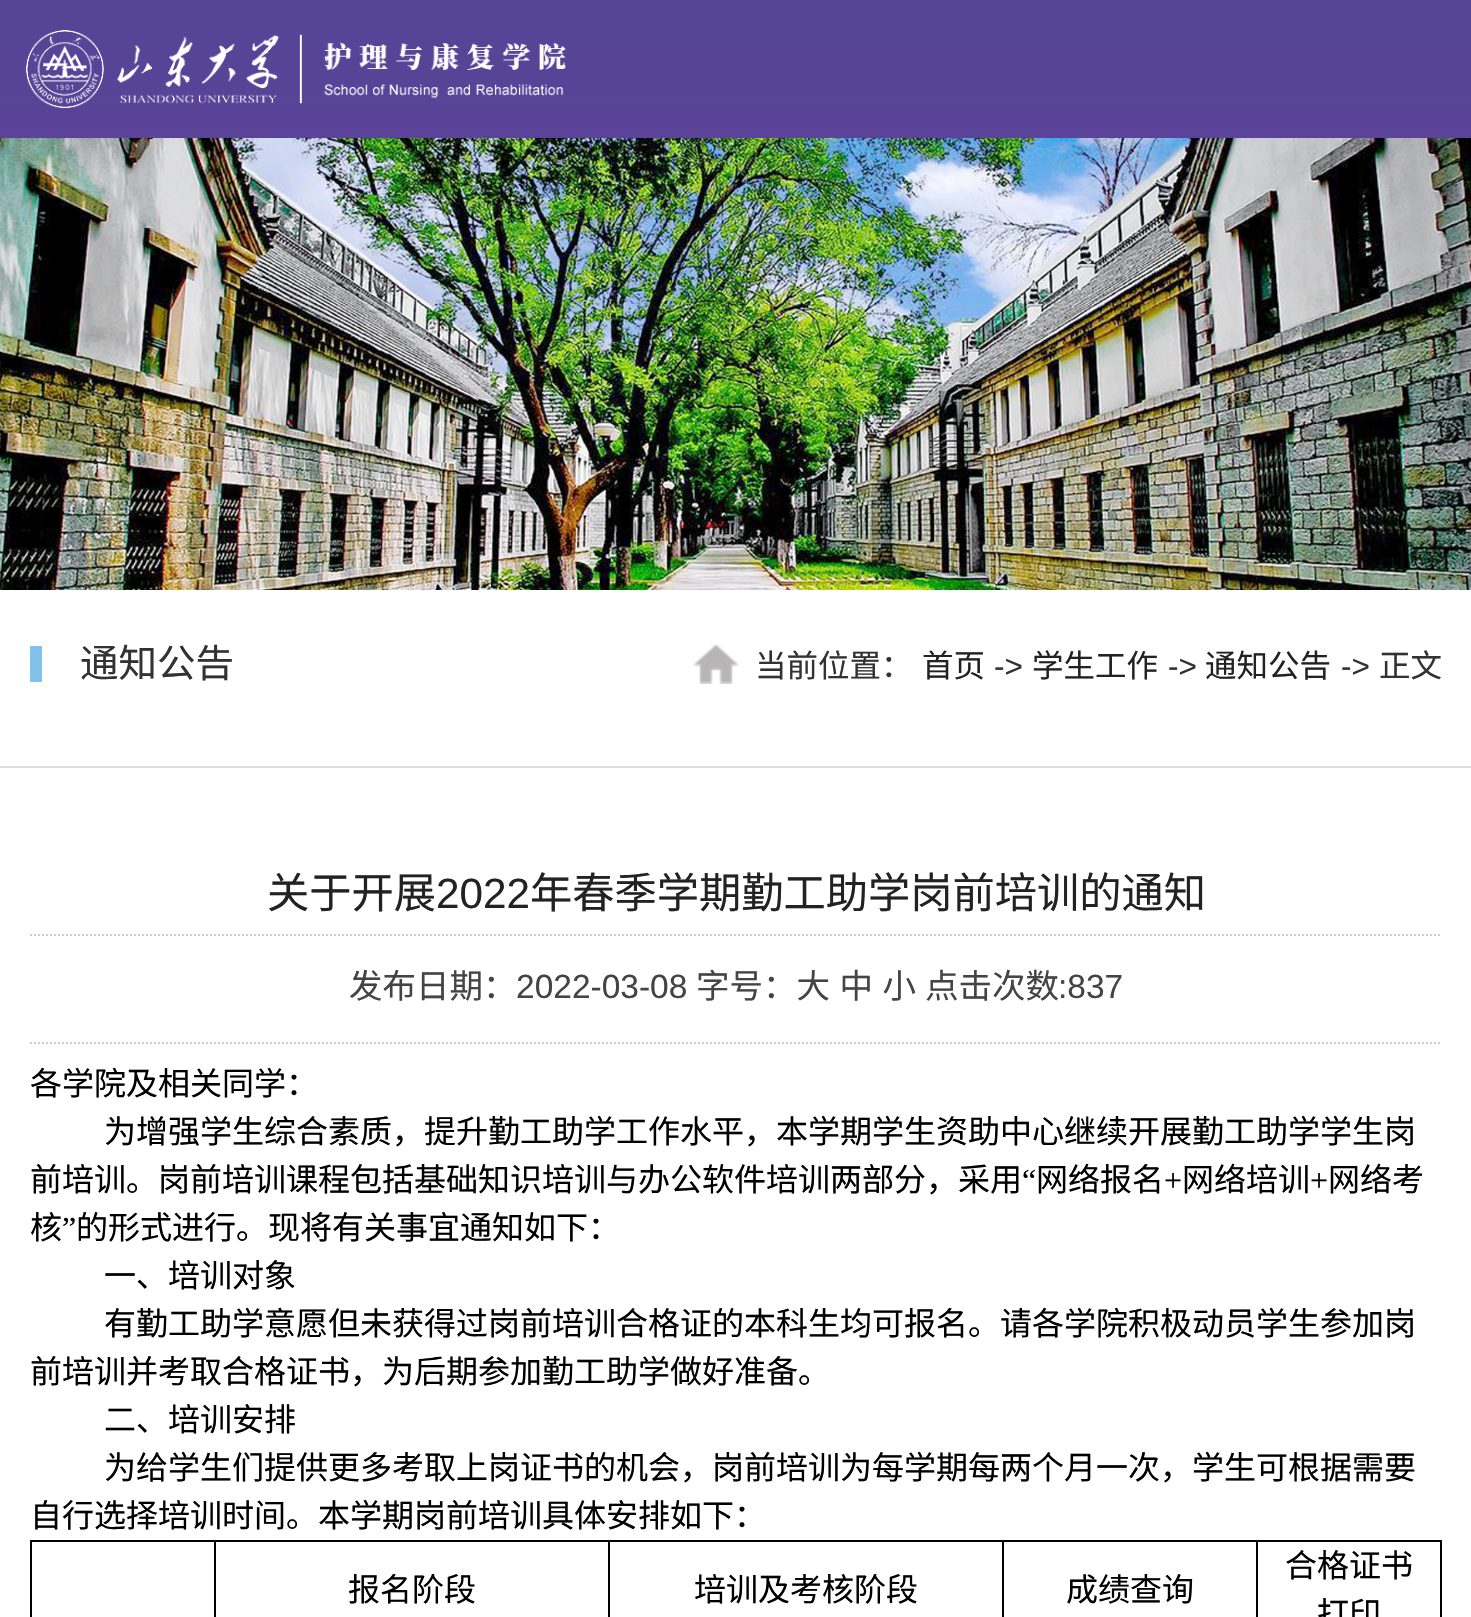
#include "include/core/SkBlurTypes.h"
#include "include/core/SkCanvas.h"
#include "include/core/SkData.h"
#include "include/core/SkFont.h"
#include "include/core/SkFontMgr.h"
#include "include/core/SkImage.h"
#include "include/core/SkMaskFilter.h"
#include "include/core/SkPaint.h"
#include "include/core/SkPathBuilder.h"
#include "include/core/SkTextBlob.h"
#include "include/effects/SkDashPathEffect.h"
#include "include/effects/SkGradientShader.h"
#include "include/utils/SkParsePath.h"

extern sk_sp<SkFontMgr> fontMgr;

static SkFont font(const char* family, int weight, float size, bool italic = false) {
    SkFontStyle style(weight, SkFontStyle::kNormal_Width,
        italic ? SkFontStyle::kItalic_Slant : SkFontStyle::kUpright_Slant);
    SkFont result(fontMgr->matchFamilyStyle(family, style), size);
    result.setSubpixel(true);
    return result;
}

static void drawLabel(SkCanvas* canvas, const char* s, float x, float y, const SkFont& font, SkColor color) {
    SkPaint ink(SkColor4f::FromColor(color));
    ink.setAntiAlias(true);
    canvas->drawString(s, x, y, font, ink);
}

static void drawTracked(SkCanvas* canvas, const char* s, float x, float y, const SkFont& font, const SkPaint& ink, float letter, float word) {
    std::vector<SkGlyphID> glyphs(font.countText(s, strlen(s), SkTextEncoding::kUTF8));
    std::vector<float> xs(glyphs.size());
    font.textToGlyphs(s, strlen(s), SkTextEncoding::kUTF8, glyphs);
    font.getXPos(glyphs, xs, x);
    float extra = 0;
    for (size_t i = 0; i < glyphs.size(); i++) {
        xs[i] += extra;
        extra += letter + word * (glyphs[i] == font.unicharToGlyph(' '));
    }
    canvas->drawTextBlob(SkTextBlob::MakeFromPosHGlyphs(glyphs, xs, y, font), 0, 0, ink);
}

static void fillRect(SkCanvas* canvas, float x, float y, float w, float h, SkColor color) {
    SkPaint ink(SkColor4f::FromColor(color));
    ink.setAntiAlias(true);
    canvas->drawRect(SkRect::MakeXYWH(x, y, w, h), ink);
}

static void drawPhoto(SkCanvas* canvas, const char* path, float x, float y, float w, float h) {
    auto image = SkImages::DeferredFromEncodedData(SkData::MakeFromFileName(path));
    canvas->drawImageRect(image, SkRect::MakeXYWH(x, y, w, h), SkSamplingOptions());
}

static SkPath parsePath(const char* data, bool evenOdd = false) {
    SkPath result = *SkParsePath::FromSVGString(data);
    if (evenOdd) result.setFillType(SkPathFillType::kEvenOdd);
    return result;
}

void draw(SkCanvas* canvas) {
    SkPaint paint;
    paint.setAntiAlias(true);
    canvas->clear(0xFFFFFFFF);
    {
        const SkColor colors[] = {0xFF554595, 0xFF5A4398};
        const float stops[] = {0, 1};
        const SkPoint ends[] = {{736, 0}, {736, 138}};
        paint.setShader(SkGradientShader::MakeLinear(ends, colors, stops, 2, SkTileMode::kClamp));
        paint.setAlpha(255);
    }
    canvas->drawRect(SkRect::MakeXYWH(0, 0, 1471, 138), paint);
    drawPhoto(canvas, "assets/img1.png", 26, 30, 540, 78);
    drawPhoto(canvas, "assets/img2.png", 0, 138, 1471, 452);
    fillRect(canvas, 0, 766, 1471, 2, 0xFFDDDDDD);
    fillRect(canvas, 30, 646, 12, 36, 0xFF82C1EA);
    SkFont font1 = font("Noto Sans CJK SC", 400, 38.5f);
    drawLabel(canvas, "通知公告", 80, 677, font1, 0xFF323232);
    drawPhoto(canvas, "assets/img3.png", 693, 644, 46, 40);
    SkFont font2 = font("Noto Sans CJK SC", 400, 31.5f);
    drawLabel(canvas, "当前位置：", 755, 677, font2, 0xFF323232);
    drawLabel(canvas, "首页", 922, 677, font2, 0xFF222222);
    SkFont font3 = font("Liberation Sans", 400, 31.5f);
    drawLabel(canvas, "->", 994, 677, font3, 0xFF323232);
    drawLabel(canvas, "学生工作", 1032, 677, font2, 0xFF222222);
    drawLabel(canvas, "->", 1168, 677, font3, 0xFF323232);
    drawLabel(canvas, "通知公告", 1205, 677, font2, 0xFF222222);
    drawLabel(canvas, "->", 1341, 677, font3, 0xFF323232);
    drawLabel(canvas, "正文", 1379, 677, font2, 0xFF323232);
    SkFont font4 = font("Noto Sans CJK SC", 400, 42.25f);
    drawLabel(canvas, "关于开展", 267, 908, font4, 0xFF222222);
    SkFont font5 = font("Liberation Sans", 400, 42.25f);
    drawLabel(canvas, "2022", 436, 908, font5, 0xFF222222);
    drawLabel(canvas, "年春季学期勤工助学岗前培训的通知", 530, 908, font4, 0xFF222222);
    paint.setStroke(true);
    paint.setStrokeWidth(2);
    paint.setShader(nullptr);
    paint.setColor(0xFFCCCCCC);
    paint.setPathEffect(SkDashPathEffect::Make({{2, 2}}, 0));
    canvas->drawPath(parsePath("M30 935H1442"), paint);
    paint.setPathEffect(nullptr);
    paint.setPathEffect(SkDashPathEffect::Make({{2, 2}}, 0));
    canvas->drawPath(parsePath("M30 1043H1442"), paint);
    paint.setPathEffect(nullptr);
    SkFont font6 = font("Noto Sans CJK SC", 400, 33.5f);
    drawLabel(canvas, "发布日期：", 349, 998, font6, 0xFF444444);
    SkFont font7 = font("Liberation Sans", 400, 33.5f);
    drawLabel(canvas, "2022-03-08", 516, 998, font7, 0xFF444444);
    paint.setStroke(false);
    paint.setColor(0xFF444444);
    drawTracked(canvas, "字号：大 中 小", 696, 998, font6, paint, 0, 2);
    drawLabel(canvas, "点击次数", 925, 998, font6, 0xFF444444);
    drawLabel(canvas, ":837", 1058, 998, font7, 0xFF444444);
    SkFont font8 = font("Noto Sans CJK SC", 400, 32);
    drawLabel(canvas, "各学院及相关同学：", 30, 1095, font8, 0xFF000000);
    drawLabel(canvas, "为增强学生综合素质，提升勤工助学工作水平，本学期学生资助中心继续开展勤工助学学生岗", 104, 1143, font8, 0xFF000000);
    drawLabel(canvas, "前培训。岗前培训课程包括基础知识培训与办公软件培训两部分，采用", 30, 1191, font8, 0xFF000000);
    SkFont font9 = font("Liberation Serif", 400, 32);
    drawLabel(canvas, "“", 1022, 1191, font9, 0xFF000000);
    drawLabel(canvas, "网络报名", 1036, 1191, font8, 0xFF000000);
    drawLabel(canvas, "+", 1164, 1191, font9, 0xFF000000);
    drawLabel(canvas, "网络培训", 1182, 1191, font8, 0xFF000000);
    drawLabel(canvas, "+", 1310, 1191, font9, 0xFF000000);
    drawLabel(canvas, "网络考", 1328, 1191, font8, 0xFF000000);
    drawLabel(canvas, "核", 30, 1239, font8, 0xFF000000);
    drawLabel(canvas, "”", 62, 1239, font9, 0xFF000000);
    drawLabel(canvas, "的形式进行。现将有关事宜通知如下：", 76, 1239, font8, 0xFF000000);
    drawLabel(canvas, "一、培训对象", 104, 1287, font8, 0xFF000000);
    drawLabel(canvas, "有勤工助学意愿但未获得过岗前培训合格证的本科生均可报名。请各学院积极动员学生参加岗", 104, 1335, font8, 0xFF000000);
    drawLabel(canvas, "前培训并考取合格证书，为后期参加勤工助学做好准备。", 30, 1383, font8, 0xFF000000);
    drawLabel(canvas, "二、培训安排", 104, 1431, font8, 0xFF000000);
    drawLabel(canvas, "为给学生们提供更多考取上岗证书的机会，岗前培训为每学期每两个月一次，学生可根据需要", 104, 1479, font8, 0xFF000000);
    drawLabel(canvas, "自行选择培训时间。本学期岗前培训具体安排如下：", 30, 1527, font8, 0xFF000000);
    fillRect(canvas, 30, 1540, 1412, 2, 0xFF000000);
    fillRect(canvas, 214, 1540, 2, 77, 0xFF000000);
    fillRect(canvas, 30, 1540, 2, 77, 0xFF000000);
    fillRect(canvas, 608, 1540, 2, 77, 0xFF000000);
    drawLabel(canvas, "报名阶段", 348, 1601, font8, 0xFF000000);
    fillRect(canvas, 1002, 1540, 2, 77, 0xFF000000);
    drawLabel(canvas, "培训及考核阶段", 694, 1601, font8, 0xFF000000);
    fillRect(canvas, 1256, 1540, 2, 77, 0xFF000000);
    drawLabel(canvas, "成绩查询", 1066, 1601, font8, 0xFF000000);
    fillRect(canvas, 1440, 1540, 2, 77, 0xFF000000);
    drawLabel(canvas, "合格证书", 1285, 1577, font8, 0xFF000000);
    drawLabel(canvas, "打印", 1317, 1625, font8, 0xFF000000);
}
